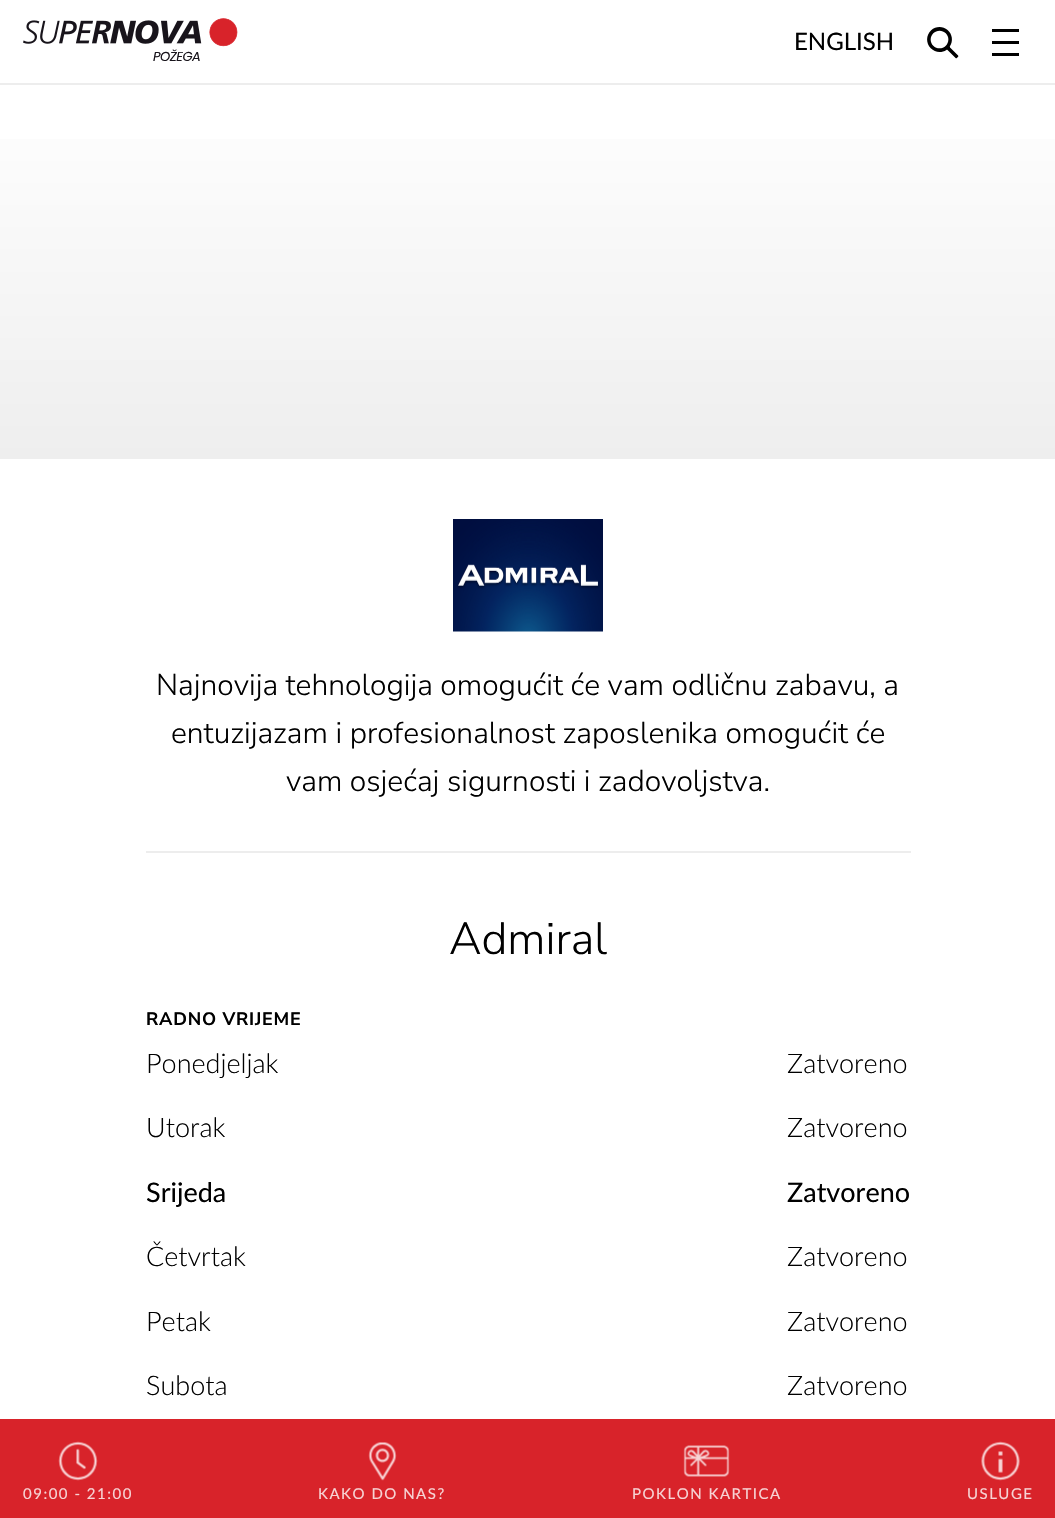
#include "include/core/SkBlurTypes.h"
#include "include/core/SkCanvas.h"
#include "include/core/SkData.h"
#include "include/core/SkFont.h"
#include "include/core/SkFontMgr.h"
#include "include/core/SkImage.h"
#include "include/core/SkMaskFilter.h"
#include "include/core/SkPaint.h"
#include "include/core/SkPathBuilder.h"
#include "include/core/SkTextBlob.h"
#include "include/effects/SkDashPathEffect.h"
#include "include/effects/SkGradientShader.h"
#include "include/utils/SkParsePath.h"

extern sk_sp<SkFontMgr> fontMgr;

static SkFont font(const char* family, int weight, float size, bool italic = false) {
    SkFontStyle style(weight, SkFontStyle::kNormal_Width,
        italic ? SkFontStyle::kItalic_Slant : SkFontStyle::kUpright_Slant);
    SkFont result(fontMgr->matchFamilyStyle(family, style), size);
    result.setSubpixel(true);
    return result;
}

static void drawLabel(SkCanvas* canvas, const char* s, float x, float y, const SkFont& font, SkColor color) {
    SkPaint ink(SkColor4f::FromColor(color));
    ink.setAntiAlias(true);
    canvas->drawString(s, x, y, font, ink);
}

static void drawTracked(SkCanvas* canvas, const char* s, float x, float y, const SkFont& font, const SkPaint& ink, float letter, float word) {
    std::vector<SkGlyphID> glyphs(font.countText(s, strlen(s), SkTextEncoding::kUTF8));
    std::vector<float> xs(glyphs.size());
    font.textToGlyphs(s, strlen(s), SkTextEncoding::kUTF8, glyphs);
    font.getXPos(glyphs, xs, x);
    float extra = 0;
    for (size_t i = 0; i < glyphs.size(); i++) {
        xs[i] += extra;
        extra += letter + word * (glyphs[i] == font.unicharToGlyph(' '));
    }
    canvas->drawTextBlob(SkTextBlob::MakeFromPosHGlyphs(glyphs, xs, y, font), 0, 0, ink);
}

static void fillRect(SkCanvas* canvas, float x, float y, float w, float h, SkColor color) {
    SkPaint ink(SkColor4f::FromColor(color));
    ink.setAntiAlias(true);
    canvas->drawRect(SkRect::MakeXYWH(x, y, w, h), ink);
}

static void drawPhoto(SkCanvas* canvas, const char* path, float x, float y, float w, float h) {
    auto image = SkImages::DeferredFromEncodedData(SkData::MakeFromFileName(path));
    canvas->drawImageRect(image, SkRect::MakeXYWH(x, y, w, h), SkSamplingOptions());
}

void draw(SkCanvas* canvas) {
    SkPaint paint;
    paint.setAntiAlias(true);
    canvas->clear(0xFFFFFFFF);
    fillRect(canvas, 0, 83, 1055, 2, 0xFFEDEDED);
    SkFont font1 = font("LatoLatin", 400, 24);
    drawLabel(canvas, "ENGLISH", 794, 50, font1, 0xFF000000);
    drawPhoto(canvas, "assets/img1.png", 927, 27, 32, 32);
    fillRect(canvas, 992, 41, 27, 3, 0xFF000000);
    fillRect(canvas, 992, 29, 27, 3, 0xFF000000);
    fillRect(canvas, 992, 53, 27, 3, 0xFF000000);
    drawPhoto(canvas, "assets/img2.png", 23, 18, 215, 29);
    SkFont font2 = font("Poppins", 400, 13, true);
    paint.setColor(0xFF18141B);
    drawTracked(canvas, "POŽEGA", 153, 61, font2, paint, -0.5f, 0);
    {
        const SkColor colors[] = {0xFFFFFFFF, 0xFFEEEEEE};
        const float stops[] = {0, 1};
        const SkPoint ends[] = {{528, 84}, {528, 459}};
        paint.setShader(SkGradientShader::MakeLinear(ends, colors, stops, 2, SkTileMode::kClamp));
        paint.setAlpha(255);
    }
    canvas->drawRect(SkRect::MakeXYWH(0, 139, 1055, 320), paint);
    drawPhoto(canvas, "assets/img3.png", 453, 519, 150, 113);
    SkFont font3 = font("Nunito Sans", 300, 30);
    drawLabel(canvas, "Najnovija tehnologija omogućit će vam odličnu zabavu, a", 156, 695, font3, 0xFF000000);
    drawLabel(canvas, "entuzijazam i profesionalnost zaposlenika omogućit će", 171, 743, font3, 0xFF000000);
    drawLabel(canvas, "vam osjećaj sigurnosti i zadovoljstva.", 286, 791, font3, 0xFF000000);
    fillRect(canvas, 146, 851, 765, 2, 0xFFEDEDED);
    SkFont font4 = font("Nunito Sans", 300, 45);
    drawLabel(canvas, "Admiral", 449, 954, font4, 0xFF000000);
    SkFont font5 = font("Nunito Sans", 700, 18);
    paint.setShader(nullptr);
    paint.setColor(0xFF000000);
    drawTracked(canvas, "RADNO VRIJEME", 146, 1025, font5, paint, 0.75f, 0);
    SkFont font6 = font("LatoLatin", 300, 27);
    drawLabel(canvas, "Ponedjeljak", 146, 1073, font6, 0xFF000000);
    drawLabel(canvas, "Zatvoreno", 787, 1073, font6, 0xFF000000);
    drawLabel(canvas, "Utorak", 146, 1137, font6, 0xFF000000);
    drawLabel(canvas, "Zatvoreno", 787, 1137, font6, 0xFF000000);
    SkFont font7 = font("LatoLatin", 400, 27);
    drawLabel(canvas, "Srijeda", 146, 1202, font7, 0xFF000000);
    drawLabel(canvas, "Zatvoreno", 787, 1202, font7, 0xFF000000);
    drawLabel(canvas, "Četvrtak", 146, 1266, font6, 0xFF000000);
    drawLabel(canvas, "Zatvoreno", 787, 1266, font6, 0xFF000000);
    drawLabel(canvas, "Petak", 146, 1331, font6, 0xFF000000);
    drawLabel(canvas, "Zatvoreno", 787, 1331, font6, 0xFF000000);
    drawLabel(canvas, "Subota", 146, 1395, font6, 0xFF000000);
    drawLabel(canvas, "Zatvoreno", 787, 1395, font6, 0xFF000000);
    fillRect(canvas, 0, 1419, 1055, 99, 0xFFD8232A);
    drawPhoto(canvas, "assets/img4.png", 58, 1441, 40, 40);
    SkFont font8 = font("LatoLatin", 400, 15);
    paint.setColor(0xFFF7D3D4);
    drawTracked(canvas, "09:00 - 21:00", 23, 1499, font8, paint, 1.5f, 0);
    drawPhoto(canvas, "assets/img5.png", 368, 1442, 29, 39);
    drawTracked(canvas, "KAKO DO NAS?", 318, 1499, font8, paint, 1.5f, 0);
    drawPhoto(canvas, "assets/img6.png", 683, 1445, 47, 32);
    drawTracked(canvas, "POKLON KARTICA", 632, 1499, font8, paint, 1.5f, 0);
    drawPhoto(canvas, "assets/img7.png", 981, 1441, 39, 40);
    drawTracked(canvas, "USLUGE", 967, 1499, font8, paint, 1.5f, 0);
}
